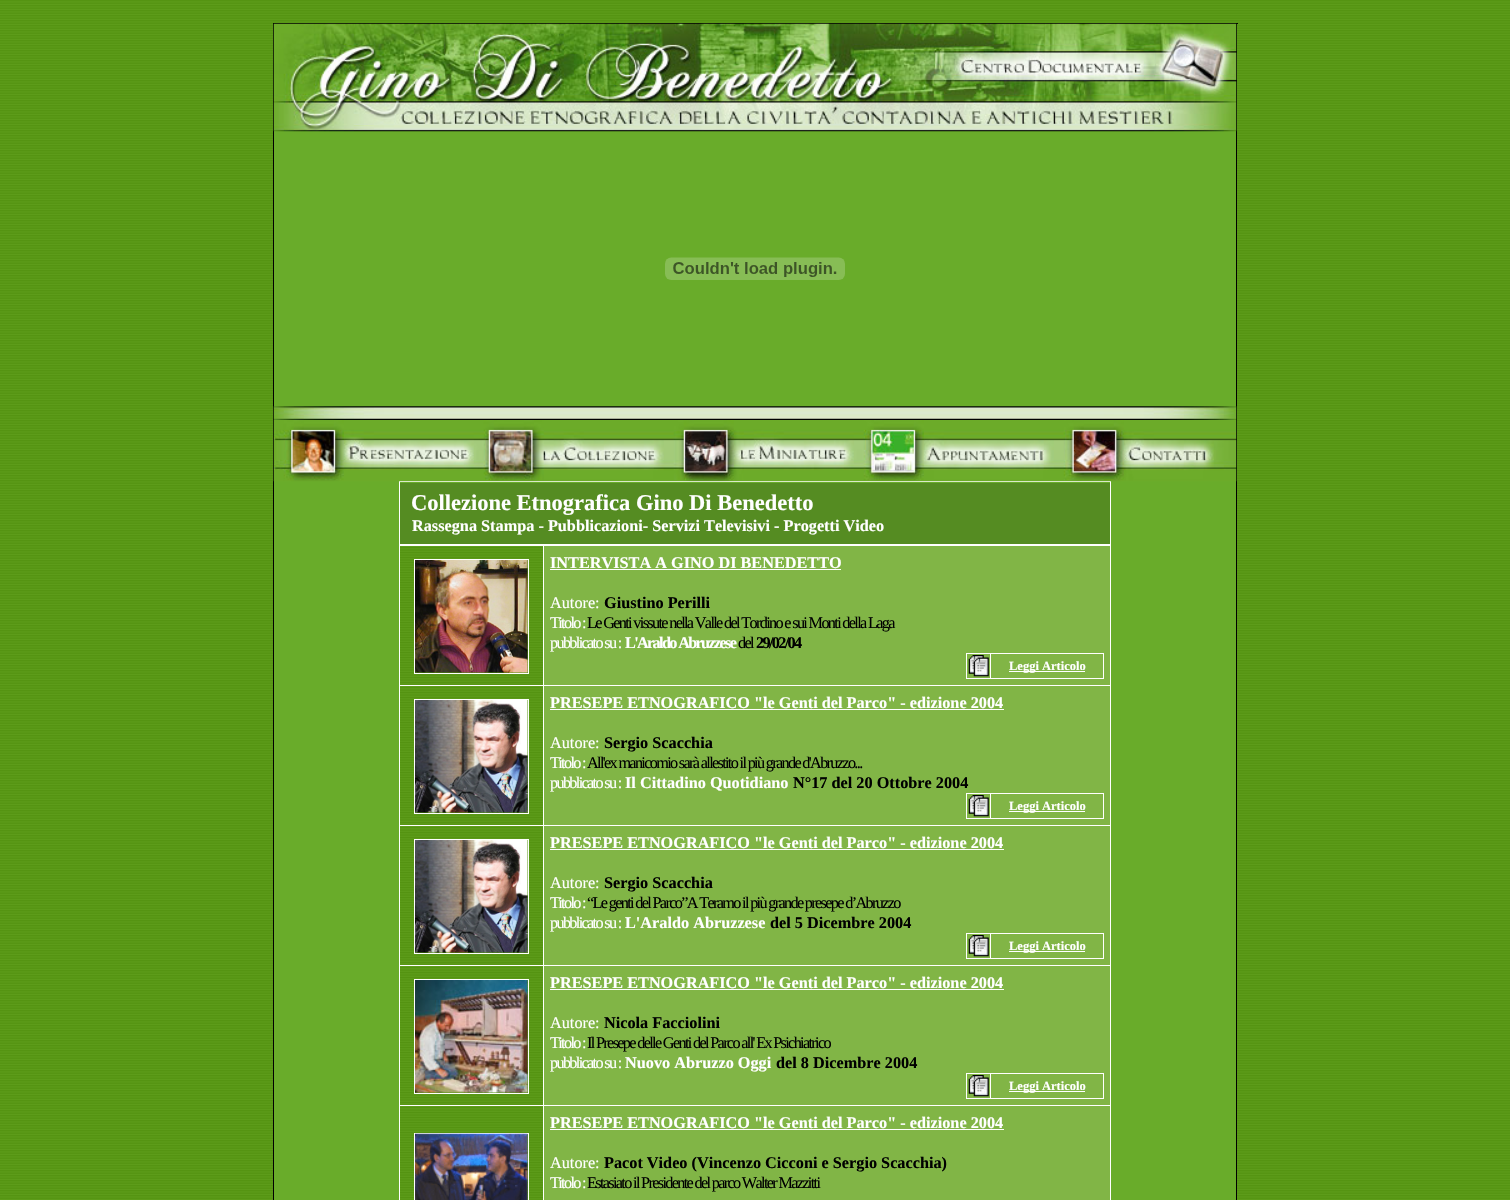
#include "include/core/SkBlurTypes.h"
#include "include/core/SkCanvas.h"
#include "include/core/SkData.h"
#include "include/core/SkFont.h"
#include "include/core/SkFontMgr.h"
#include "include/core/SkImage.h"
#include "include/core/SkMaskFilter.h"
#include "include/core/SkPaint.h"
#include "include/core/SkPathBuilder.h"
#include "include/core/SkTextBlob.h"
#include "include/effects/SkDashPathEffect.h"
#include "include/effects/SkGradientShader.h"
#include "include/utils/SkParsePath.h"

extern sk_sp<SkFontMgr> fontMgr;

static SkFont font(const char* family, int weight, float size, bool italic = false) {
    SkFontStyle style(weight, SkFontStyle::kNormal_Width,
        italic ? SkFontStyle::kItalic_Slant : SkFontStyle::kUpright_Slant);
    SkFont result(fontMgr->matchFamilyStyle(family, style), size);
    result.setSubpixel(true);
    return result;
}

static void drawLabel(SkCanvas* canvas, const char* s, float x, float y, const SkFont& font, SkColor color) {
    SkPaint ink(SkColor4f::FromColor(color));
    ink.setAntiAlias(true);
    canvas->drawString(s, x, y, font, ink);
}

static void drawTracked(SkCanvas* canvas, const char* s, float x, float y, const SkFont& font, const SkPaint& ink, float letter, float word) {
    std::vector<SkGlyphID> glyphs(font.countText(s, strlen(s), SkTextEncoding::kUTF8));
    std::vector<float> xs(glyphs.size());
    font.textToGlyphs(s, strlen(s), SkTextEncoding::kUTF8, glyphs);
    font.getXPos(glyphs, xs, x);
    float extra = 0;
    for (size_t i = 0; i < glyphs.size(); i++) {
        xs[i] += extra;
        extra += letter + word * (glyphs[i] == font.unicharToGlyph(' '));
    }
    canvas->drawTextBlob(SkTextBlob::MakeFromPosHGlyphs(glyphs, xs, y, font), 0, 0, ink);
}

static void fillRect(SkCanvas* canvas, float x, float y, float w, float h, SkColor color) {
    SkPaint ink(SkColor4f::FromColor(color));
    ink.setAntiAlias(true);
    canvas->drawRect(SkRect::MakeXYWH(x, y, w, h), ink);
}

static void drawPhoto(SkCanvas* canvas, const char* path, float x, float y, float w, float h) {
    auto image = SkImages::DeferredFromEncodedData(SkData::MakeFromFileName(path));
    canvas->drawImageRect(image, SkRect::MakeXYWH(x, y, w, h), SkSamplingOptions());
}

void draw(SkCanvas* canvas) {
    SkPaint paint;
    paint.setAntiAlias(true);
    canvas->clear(0xFFFFFFFF);
    drawPhoto(canvas, "assets/img1.png", 0, 0, 1510, 1200);
    fillRect(canvas, 273, 23, 965, 1, 0xFF000000);
    fillRect(canvas, 1236, 23, 1, 1177, 0xFF000000);
    fillRect(canvas, 273, 23, 1, 1177, 0xFF000000);
    fillRect(canvas, 274, 131, 962, 1069, 0xFF69AC2A);
    drawPhoto(canvas, "assets/img2.png", 273, 23, 964, 109);
    drawPhoto(canvas, "assets/img3.png", 665, 257, 180, 23);
    drawPhoto(canvas, "assets/img4.png", 273, 406, 964, 14);
    fillRect(canvas, 399, 481, 712, 1, 0xFFFFFFFF);
    fillRect(canvas, 1110, 481, 1, 64, 0xFFFFFFFF);
    fillRect(canvas, 399, 544, 712, 2, 0xFFFFFFFF);
    fillRect(canvas, 399, 481, 1, 719, 0xFFFFFFFF);
    drawPhoto(canvas, "assets/img5.png", 273, 420, 964, 62);
    fillRect(canvas, 400, 483, 710, 61, 0xFF558C22);
    SkFont font1 = font("Liberation Serif", 700, 22.5f);
    drawLabel(canvas, "Collezione Etnografica Gino Di Benedetto", 411, 510, font1, 0xFFFFFFFF);
    SkFont font2 = font("Liberation Serif", 700, 16.25f);
    drawLabel(canvas, "Rassegna Stampa - Pubblicazioni- Servizi Televisivi - Progetti Video", 412, 531, font2, 0xFFFFFFFF);
    fillRect(canvas, 1110, 545, 1, 655, 0xFFFFFFFF);
    drawPhoto(canvas, "assets/img6.png", 400, 546, 143, 141);
    fillRect(canvas, 414, 559, 115, 1, 0xFFFFFFFF);
    fillRect(canvas, 528, 559, 1, 115, 0xFFFFFFFF);
    fillRect(canvas, 414, 673, 115, 1, 0xFFFFFFFF);
    fillRect(canvas, 414, 559, 1, 115, 0xFFFFFFFF);
    drawPhoto(canvas, "assets/img7.png", 415, 560, 113, 113);
    fillRect(canvas, 544, 546, 566, 139, 0xFF81B546);
    fillRect(canvas, 543, 685, 568, 1, 0xFFFFFFFF);
    drawPhoto(canvas, "assets/img9.png", 400, 686, 143, 141);
    fillRect(canvas, 543, 825, 568, 1, 0xFFFFFFFF);
    drawPhoto(canvas, "assets/img9.png", 400, 826, 143, 141);
    fillRect(canvas, 543, 965, 568, 1, 0xFFFFFFFF);
    drawPhoto(canvas, "assets/img9.png", 400, 966, 143, 141);
    fillRect(canvas, 543, 1105, 568, 1, 0xFFFFFFFF);
    fillRect(canvas, 543, 1105, 1, 95, 0xFFFFFFFF);
    fillRect(canvas, 399, 1105, 145, 1, 0xFFFFFFFF);
    fillRect(canvas, 543, 965, 1, 141, 0xFFFFFFFF);
    fillRect(canvas, 399, 965, 145, 1, 0xFFFFFFFF);
    fillRect(canvas, 543, 825, 1, 141, 0xFFFFFFFF);
    fillRect(canvas, 399, 825, 145, 1, 0xFFFFFFFF);
    fillRect(canvas, 543, 685, 1, 141, 0xFFFFFFFF);
    fillRect(canvas, 399, 685, 145, 1, 0xFFFFFFFF);
    fillRect(canvas, 543, 545, 1, 141, 0xFFFFFFFF);
    drawLabel(canvas, "INTERVISTA A GINO DI BENEDETTO", 550, 568, font2, 0xFFFFFFFF);
    fillRect(canvas, 550, 569, 291, 1, 0xFFFFFFFF);
    SkFont font3 = font("Liberation Serif", 400, 16.25f);
    drawLabel(canvas, "Autore:", 550, 608, font3, 0xFFFFFFFF);
    drawLabel(canvas, "Giustino Perilli", 604, 608, font2, 0xFF000000);
    paint.setColor(0xFFFFFFFF);
    drawTracked(canvas, "Titolo :", 550, 628, font3, paint, -1.67f, 0);
    paint.setColor(0xFF000000);
    drawTracked(canvas, "Le Genti vissute nella Valle del Tordino e sui Monti della Laga", 587, 628, font3, paint, -1.67f, 0);
    paint.setColor(0xFFFFFFFF);
    drawTracked(canvas, "pubblicato su :", 550, 648, font3, paint, -1.67f, 0);
    drawTracked(canvas, "L'Araldo Abruzzese", 625, 648, font2, paint, -1.67f, 0);
    paint.setColor(0xFF000000);
    drawTracked(canvas, "del", 738, 648, font3, paint, -1.67f, 0);
    drawTracked(canvas, "29/02/04", 756, 648, font2, paint, -1.67f, 0);
    fillRect(canvas, 966, 653, 138, 1, 0xFFFFFFFF);
    fillRect(canvas, 1103, 653, 1, 26, 0xFFFFFFFF);
    fillRect(canvas, 966, 678, 138, 1, 0xFFFFFFFF);
    fillRect(canvas, 966, 653, 1, 26, 0xFFFFFFFF);
    drawPhoto(canvas, "assets/img8.png", 968, 655, 21, 22);
    fillRect(canvas, 990, 653, 1, 26, 0xFFFFFFFF);
    fillRect(canvas, 1009, 671, 76, 1, 0xFFFFFFFF);
    SkFont font4 = font("Liberation Serif", 700, 12.5f);
    drawLabel(canvas, "Leggi Articolo", 1009, 670, font4, 0xFFFFFFFF);
    fillRect(canvas, 414, 699, 115, 1, 0xFFFFFFFF);
    fillRect(canvas, 528, 699, 1, 115, 0xFFFFFFFF);
    fillRect(canvas, 414, 813, 115, 1, 0xFFFFFFFF);
    fillRect(canvas, 414, 699, 1, 115, 0xFFFFFFFF);
    drawPhoto(canvas, "assets/img10.png", 415, 700, 113, 113);
    fillRect(canvas, 544, 686, 566, 139, 0xFF81B546);
    drawLabel(canvas, "PRESEPE ETNOGRAFICO \"le Genti del Parco\" - edizione 2004", 550, 708, font2, 0xFFFFFFFF);
    fillRect(canvas, 550, 709, 454, 1, 0xFFFFFFFF);
    drawLabel(canvas, "Autore:", 550, 748, font3, 0xFFFFFFFF);
    drawLabel(canvas, "Sergio Scacchia", 604, 748, font2, 0xFF000000);
    paint.setColor(0xFFFFFFFF);
    drawTracked(canvas, "Titolo :", 550, 768, font3, paint, -1.67f, 0);
    paint.setColor(0xFF000000);
    drawTracked(canvas, "All'ex manicomio sarà allestito il più grande d'Abruzzo...", 587, 768, font3, paint, -1.67f, 0);
    paint.setColor(0xFFFFFFFF);
    drawTracked(canvas, "pubblicato su :", 550, 788, font3, paint, -1.67f, 0);
    drawLabel(canvas, "Il Cittadino Quotidiano", 625, 788, font2, 0xFFFFFFFF);
    drawLabel(canvas, "N°17 del 20 Ottobre 2004", 793, 788, font2, 0xFF000000);
    fillRect(canvas, 966, 793, 138, 1, 0xFFFFFFFF);
    fillRect(canvas, 1103, 793, 1, 26, 0xFFFFFFFF);
    fillRect(canvas, 966, 818, 138, 1, 0xFFFFFFFF);
    fillRect(canvas, 966, 793, 1, 26, 0xFFFFFFFF);
    drawPhoto(canvas, "assets/img8.png", 968, 795, 21, 22);
    fillRect(canvas, 990, 793, 1, 26, 0xFFFFFFFF);
    fillRect(canvas, 1009, 811, 76, 1, 0xFFFFFFFF);
    drawLabel(canvas, "Leggi Articolo", 1009, 810, font4, 0xFFFFFFFF);
    fillRect(canvas, 414, 839, 115, 1, 0xFFFFFFFF);
    fillRect(canvas, 528, 839, 1, 115, 0xFFFFFFFF);
    fillRect(canvas, 414, 953, 115, 1, 0xFFFFFFFF);
    fillRect(canvas, 414, 839, 1, 115, 0xFFFFFFFF);
    drawPhoto(canvas, "assets/img10.png", 415, 840, 113, 113);
    fillRect(canvas, 544, 826, 566, 139, 0xFF81B546);
    drawLabel(canvas, "PRESEPE ETNOGRAFICO \"le Genti del Parco\" - edizione 2004", 550, 848, font2, 0xFFFFFFFF);
    fillRect(canvas, 550, 849, 454, 1, 0xFFFFFFFF);
    drawLabel(canvas, "Autore:", 550, 888, font3, 0xFFFFFFFF);
    drawLabel(canvas, "Sergio Scacchia", 604, 888, font2, 0xFF000000);
    drawTracked(canvas, "Titolo :", 550, 908, font3, paint, -1.67f, 0);
    paint.setColor(0xFF000000);
    drawTracked(canvas, "“Le genti del Parco”A Teramo il più grande presepe d’Abruzzo", 587, 908, font3, paint, -1.67f, 0);
    paint.setColor(0xFFFFFFFF);
    drawTracked(canvas, "pubblicato su :", 550, 928, font3, paint, -1.67f, 0);
    drawLabel(canvas, "L'Araldo Abruzzese", 625, 928, font2, 0xFFFFFFFF);
    drawLabel(canvas, "del 5 Dicembre 2004", 770, 928, font2, 0xFF000000);
    fillRect(canvas, 966, 933, 138, 1, 0xFFFFFFFF);
    fillRect(canvas, 1103, 933, 1, 26, 0xFFFFFFFF);
    fillRect(canvas, 966, 958, 138, 1, 0xFFFFFFFF);
    fillRect(canvas, 966, 933, 1, 26, 0xFFFFFFFF);
    drawPhoto(canvas, "assets/img8.png", 968, 935, 21, 22);
    fillRect(canvas, 990, 933, 1, 26, 0xFFFFFFFF);
    fillRect(canvas, 1009, 951, 76, 1, 0xFFFFFFFF);
    drawLabel(canvas, "Leggi Articolo", 1009, 950, font4, 0xFFFFFFFF);
    fillRect(canvas, 414, 979, 115, 1, 0xFFFFFFFF);
    fillRect(canvas, 528, 979, 1, 115, 0xFFFFFFFF);
    fillRect(canvas, 414, 1093, 115, 1, 0xFFFFFFFF);
    fillRect(canvas, 414, 979, 1, 115, 0xFFFFFFFF);
    drawPhoto(canvas, "assets/img11.png", 415, 980, 113, 113);
    fillRect(canvas, 544, 966, 566, 139, 0xFF81B546);
    drawLabel(canvas, "PRESEPE ETNOGRAFICO \"le Genti del Parco\" - edizione 2004", 550, 988, font2, 0xFFFFFFFF);
    fillRect(canvas, 550, 989, 454, 1, 0xFFFFFFFF);
    drawLabel(canvas, "Autore:", 550, 1028, font3, 0xFFFFFFFF);
    drawLabel(canvas, "Nicola Facciolini", 604, 1028, font2, 0xFF000000);
    drawTracked(canvas, "Titolo :", 550, 1048, font3, paint, -1.67f, 0);
    paint.setColor(0xFF000000);
    drawTracked(canvas, "Il Presepe delle Genti del Parco all' Ex Psichiatrico", 587, 1048, font3, paint, -1.67f, 0);
    paint.setColor(0xFFFFFFFF);
    drawTracked(canvas, "pubblicato su :", 550, 1068, font3, paint, -1.67f, 0);
    drawLabel(canvas, "Nuovo Abruzzo Oggi", 625, 1068, font2, 0xFFFFFFFF);
    drawLabel(canvas, "del 8 Dicembre 2004", 776, 1068, font2, 0xFF000000);
    fillRect(canvas, 966, 1073, 138, 1, 0xFFFFFFFF);
    fillRect(canvas, 1103, 1073, 1, 26, 0xFFFFFFFF);
    fillRect(canvas, 966, 1098, 138, 1, 0xFFFFFFFF);
    fillRect(canvas, 966, 1073, 1, 26, 0xFFFFFFFF);
    drawPhoto(canvas, "assets/img8.png", 968, 1075, 21, 22);
    fillRect(canvas, 990, 1073, 1, 26, 0xFFFFFFFF);
    fillRect(canvas, 1009, 1091, 76, 1, 0xFFFFFFFF);
    drawLabel(canvas, "Leggi Articolo", 1009, 1090, font4, 0xFFFFFFFF);
    drawPhoto(canvas, "assets/img12.png", 400, 1106, 143, 94);
    fillRect(canvas, 414, 1133, 115, 1, 0xFFFFFFFF);
    fillRect(canvas, 528, 1133, 1, 67, 0xFFFFFFFF);
    fillRect(canvas, 414, 1133, 1, 67, 0xFFFFFFFF);
    drawPhoto(canvas, "assets/img13.png", 415, 1133, 113, 67);
    fillRect(canvas, 544, 1106, 566, 94, 0xFF81B546);
    drawLabel(canvas, "PRESEPE ETNOGRAFICO \"le Genti del Parco\" - edizione 2004", 550, 1128, font2, 0xFFFFFFFF);
    fillRect(canvas, 550, 1129, 454, 1, 0xFFFFFFFF);
    drawLabel(canvas, "Autore:", 550, 1168, font3, 0xFFFFFFFF);
    drawLabel(canvas, "Pacot Video (Vincenzo Cicconi e Sergio Scacchia)", 604, 1168, font2, 0xFF000000);
    drawTracked(canvas, "Titolo :", 550, 1188, font3, paint, -1.67f, 0);
    paint.setColor(0xFF000000);
    drawTracked(canvas, "Estasiato il Presidente del parco Walter Mazzitti", 587, 1188, font3, paint, -1.67f, 0);
}
